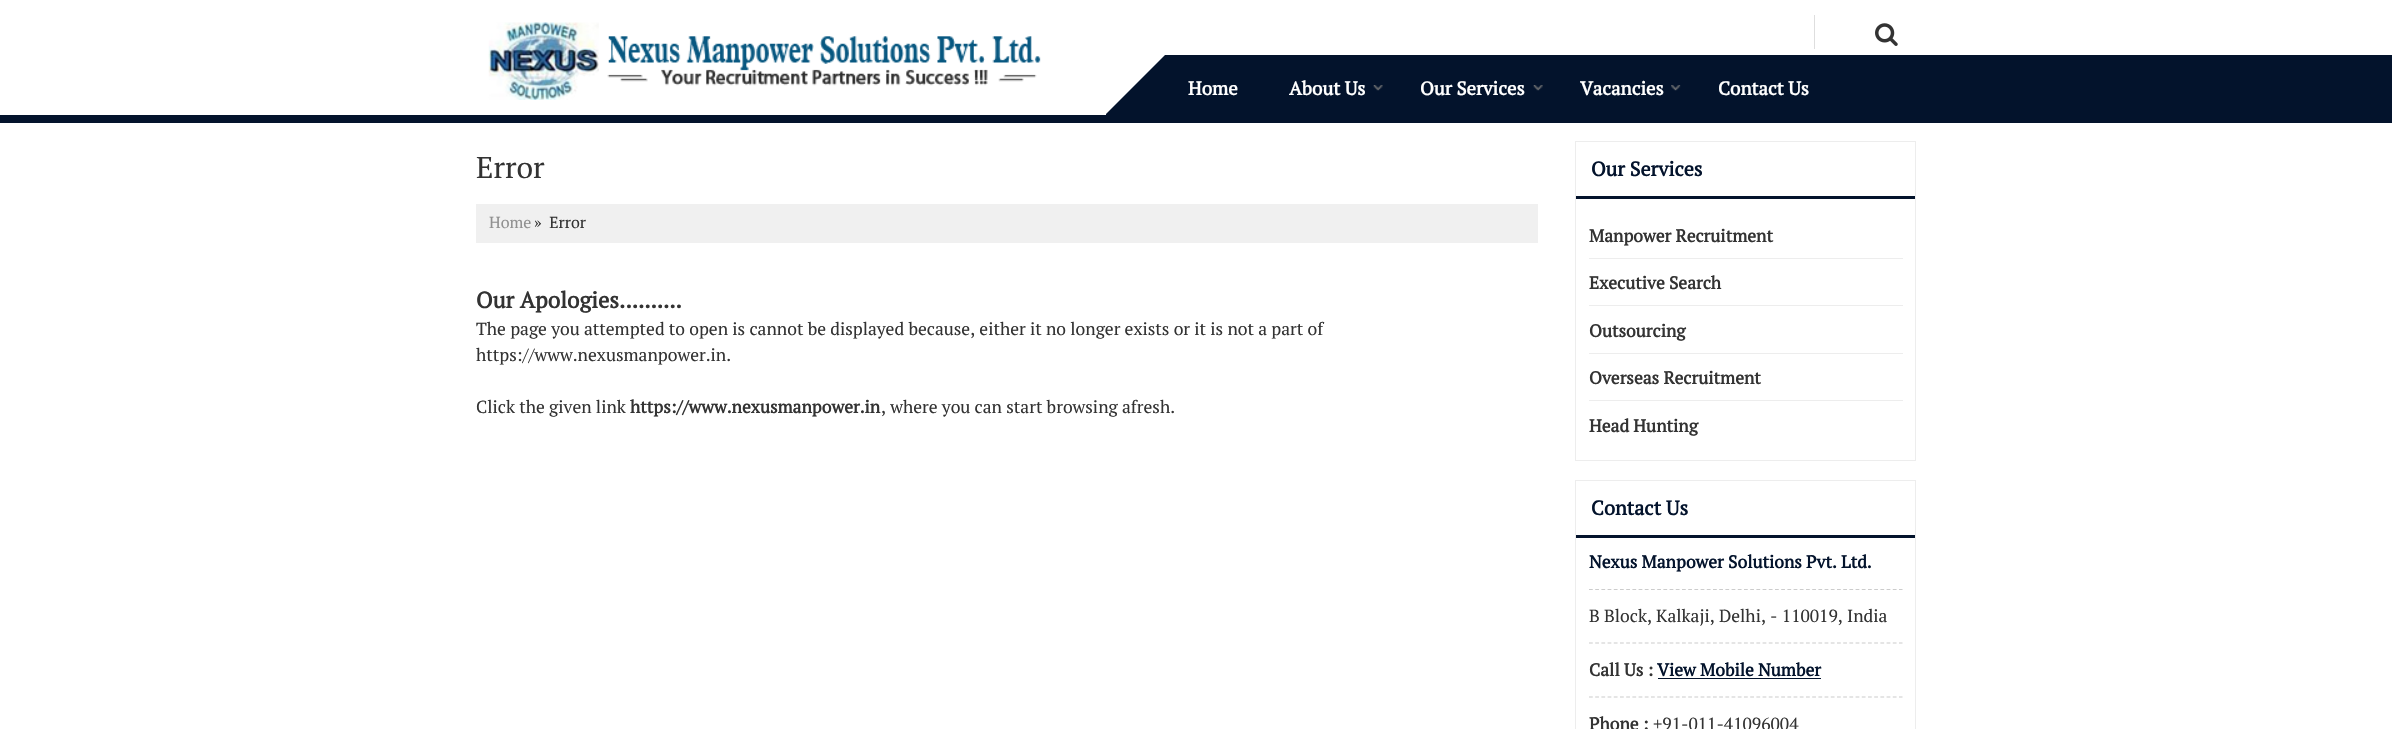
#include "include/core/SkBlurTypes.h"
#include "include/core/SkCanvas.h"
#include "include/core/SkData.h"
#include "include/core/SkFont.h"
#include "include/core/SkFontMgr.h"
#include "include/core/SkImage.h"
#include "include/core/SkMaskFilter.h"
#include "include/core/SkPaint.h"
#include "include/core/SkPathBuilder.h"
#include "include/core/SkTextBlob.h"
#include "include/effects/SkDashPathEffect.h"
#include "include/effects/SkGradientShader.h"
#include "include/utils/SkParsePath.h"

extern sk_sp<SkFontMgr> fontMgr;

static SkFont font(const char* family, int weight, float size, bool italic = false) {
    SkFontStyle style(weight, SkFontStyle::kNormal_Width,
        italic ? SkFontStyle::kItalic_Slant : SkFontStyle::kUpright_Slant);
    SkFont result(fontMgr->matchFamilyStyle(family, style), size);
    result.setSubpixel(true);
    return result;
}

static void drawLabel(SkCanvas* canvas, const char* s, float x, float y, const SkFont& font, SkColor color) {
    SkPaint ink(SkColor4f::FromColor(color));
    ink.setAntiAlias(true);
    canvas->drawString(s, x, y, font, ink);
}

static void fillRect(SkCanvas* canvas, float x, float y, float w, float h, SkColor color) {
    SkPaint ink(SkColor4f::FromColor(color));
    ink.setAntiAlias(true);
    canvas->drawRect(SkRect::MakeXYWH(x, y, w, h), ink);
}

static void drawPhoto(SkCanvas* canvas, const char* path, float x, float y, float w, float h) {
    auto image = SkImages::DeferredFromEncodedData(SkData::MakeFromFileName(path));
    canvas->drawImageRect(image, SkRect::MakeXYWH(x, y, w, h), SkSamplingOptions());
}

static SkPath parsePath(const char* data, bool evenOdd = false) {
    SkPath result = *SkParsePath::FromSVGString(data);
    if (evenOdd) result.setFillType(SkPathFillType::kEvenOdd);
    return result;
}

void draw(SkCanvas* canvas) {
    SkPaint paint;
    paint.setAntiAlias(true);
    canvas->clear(0xFFFFFFFF);
    fillRect(canvas, 1106, 55, 1286, 68, 0xFF03132C);
    drawPhoto(canvas, "assets/img1.png", 488, 22, 553, 78);
    fillRect(canvas, 1814, 15, 1, 34, 0xFFDEDEDE);
    drawPhoto(canvas, "assets/img2.png", 1875, 23, 23, 23);
    paint.setColor(0xFFFFFFFF);
    canvas->drawPath(parsePath("M1099 121V55H1165Z"), paint);
    SkFont font1 = font("PT Serif", 700, 18.75f);
    drawLabel(canvas, "Home", 1188, 95, font1, 0xFFFFFFFF);
    drawLabel(canvas, "About Us", 1289, 95, font1, 0xFFFFFFFF);
    drawPhoto(canvas, "assets/img3.png", 1373, 85, 10, 6);
    drawLabel(canvas, "Our Services", 1420, 95, font1, 0xFFFFFFFF);
    drawPhoto(canvas, "assets/img4.png", 1533, 85, 10, 6);
    drawLabel(canvas, "Vacancies", 1580, 95, font1, 0xFFFFFFFF);
    drawPhoto(canvas, "assets/img5.png", 1671, 85, 10, 6);
    drawLabel(canvas, "Contact Us", 1718, 95, font1, 0xFFFFFFFF);
    fillRect(canvas, 0, 115, 1106, 8, 0xFF03132C);
    SkFont font2 = font("PT Serif", 400, 30);
    drawLabel(canvas, "Error", 476, 178, font2, 0xFF333333);
    fillRect(canvas, 476, 204, 1062, 39, 0xFFF0F0F0);
    SkFont font3 = font("PT Serif", 400, 16);
    drawLabel(canvas, "Home", 489, 228, font3, 0xFF909090);
    drawLabel(canvas, "»  Error", 534, 228, font3, 0xFF333333);
    SkFont font4 = font("PT Serif", 700, 22.5f);
    drawLabel(canvas, "Our Apologies..........", 476, 308, font4, 0xFF333333);
    SkFont font5 = font("PT Serif", 400, 17.5f);
    drawLabel(canvas, "The page you attempted to open is cannot be displayed because, either it no longer exists or it is not a part of", 476, 335, font5, 0xFF333333);
    drawLabel(canvas, "https://www.nexusmanpower.in.", 476, 361, font5, 0xFF333333);
    drawLabel(canvas, "Click the given link", 476, 413, font5, 0xFF333333);
    SkFont font6 = font("PT Serif", 700, 17.5f);
    drawLabel(canvas, "https://www.nexusmanpower.in", 630, 413, font6, 0xFF333333);
    drawLabel(canvas, ", where you can start browsing afresh.", 881, 413, font5, 0xFF333333);
    paint.setStroke(true);
    paint.setStrokeWidth(1);
    paint.setColor(0xFFEDEDED);
    canvas->drawRect(SkRect::MakeXYWH(1575.5f, 141.5f, 340, 319), paint);
    fillRect(canvas, 1576, 196, 339, 3, 0xFF03132C);
    SkFont font7 = font("PT Serif", 700, 20);
    drawLabel(canvas, "Our Services", 1591, 176, font7, 0xFF03132C);
    fillRect(canvas, 1589, 258, 314, 1, 0xFFEDEDED);
    drawLabel(canvas, "Manpower Recruitment", 1589, 242, font6, 0xFF333333);
    fillRect(canvas, 1589, 305, 314, 1, 0xFFEDEDED);
    drawLabel(canvas, "Executive Search", 1589, 289, font6, 0xFF333333);
    fillRect(canvas, 1589, 353, 314, 1, 0xFFEDEDED);
    drawLabel(canvas, "Outsourcing", 1589, 337, font6, 0xFF333333);
    fillRect(canvas, 1589, 400, 314, 1, 0xFFEDEDED);
    drawLabel(canvas, "Overseas Recruitment", 1589, 384, font6, 0xFF333333);
    drawLabel(canvas, "Head Hunting", 1589, 432, font6, 0xFF333333);
    canvas->drawRect(SkRect::MakeXYWH(1575.5f, 480.5f, 340, 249), paint);
    fillRect(canvas, 1576, 535, 339, 3, 0xFF03132C);
    drawLabel(canvas, "Contact Us", 1591, 515, font7, 0xFF03132C);
    drawLabel(canvas, "Nexus Manpower Solutions Pvt. Ltd.", 1589, 568, font6, 0xFF03132C);
    paint.setStrokeWidth(1.2f);
    paint.setColor(0xFFCCCCCC);
    paint.setPathEffect(SkDashPathEffect::Make({{3.75f, 2.45f}}, 0));
    canvas->drawPath(parsePath("M1589 589.5H1902.5"), paint);
    paint.setPathEffect(nullptr);
    drawLabel(canvas, "B Block, Kalkaji, Delhi, - 110019, India", 1589, 622, font5, 0xFF333333);
    paint.setPathEffect(SkDashPathEffect::Make({{3.75f, 2.45f}}, 0));
    canvas->drawPath(parsePath("M1589 643H1902.5"), paint);
    paint.setPathEffect(nullptr);
    drawLabel(canvas, "Call Us :", 1589, 676, font6, 0xFF333333);
    drawLabel(canvas, "View Mobile Number", 1657, 676, font6, 0xFF03132C);
    fillRect(canvas, 1658, 678, 163, 1, 0xFF03132C);
    paint.setPathEffect(SkDashPathEffect::Make({{3.75f, 2.45f}}, 0));
    canvas->drawPath(parsePath("M1589 697H1902.5"), paint);
    paint.setPathEffect(nullptr);
    drawLabel(canvas, "Phone :", 1589, 730, font6, 0xFF333333);
    drawLabel(canvas, "+91-011-41096004", 1653, 730, font5, 0xFF333333);
}
